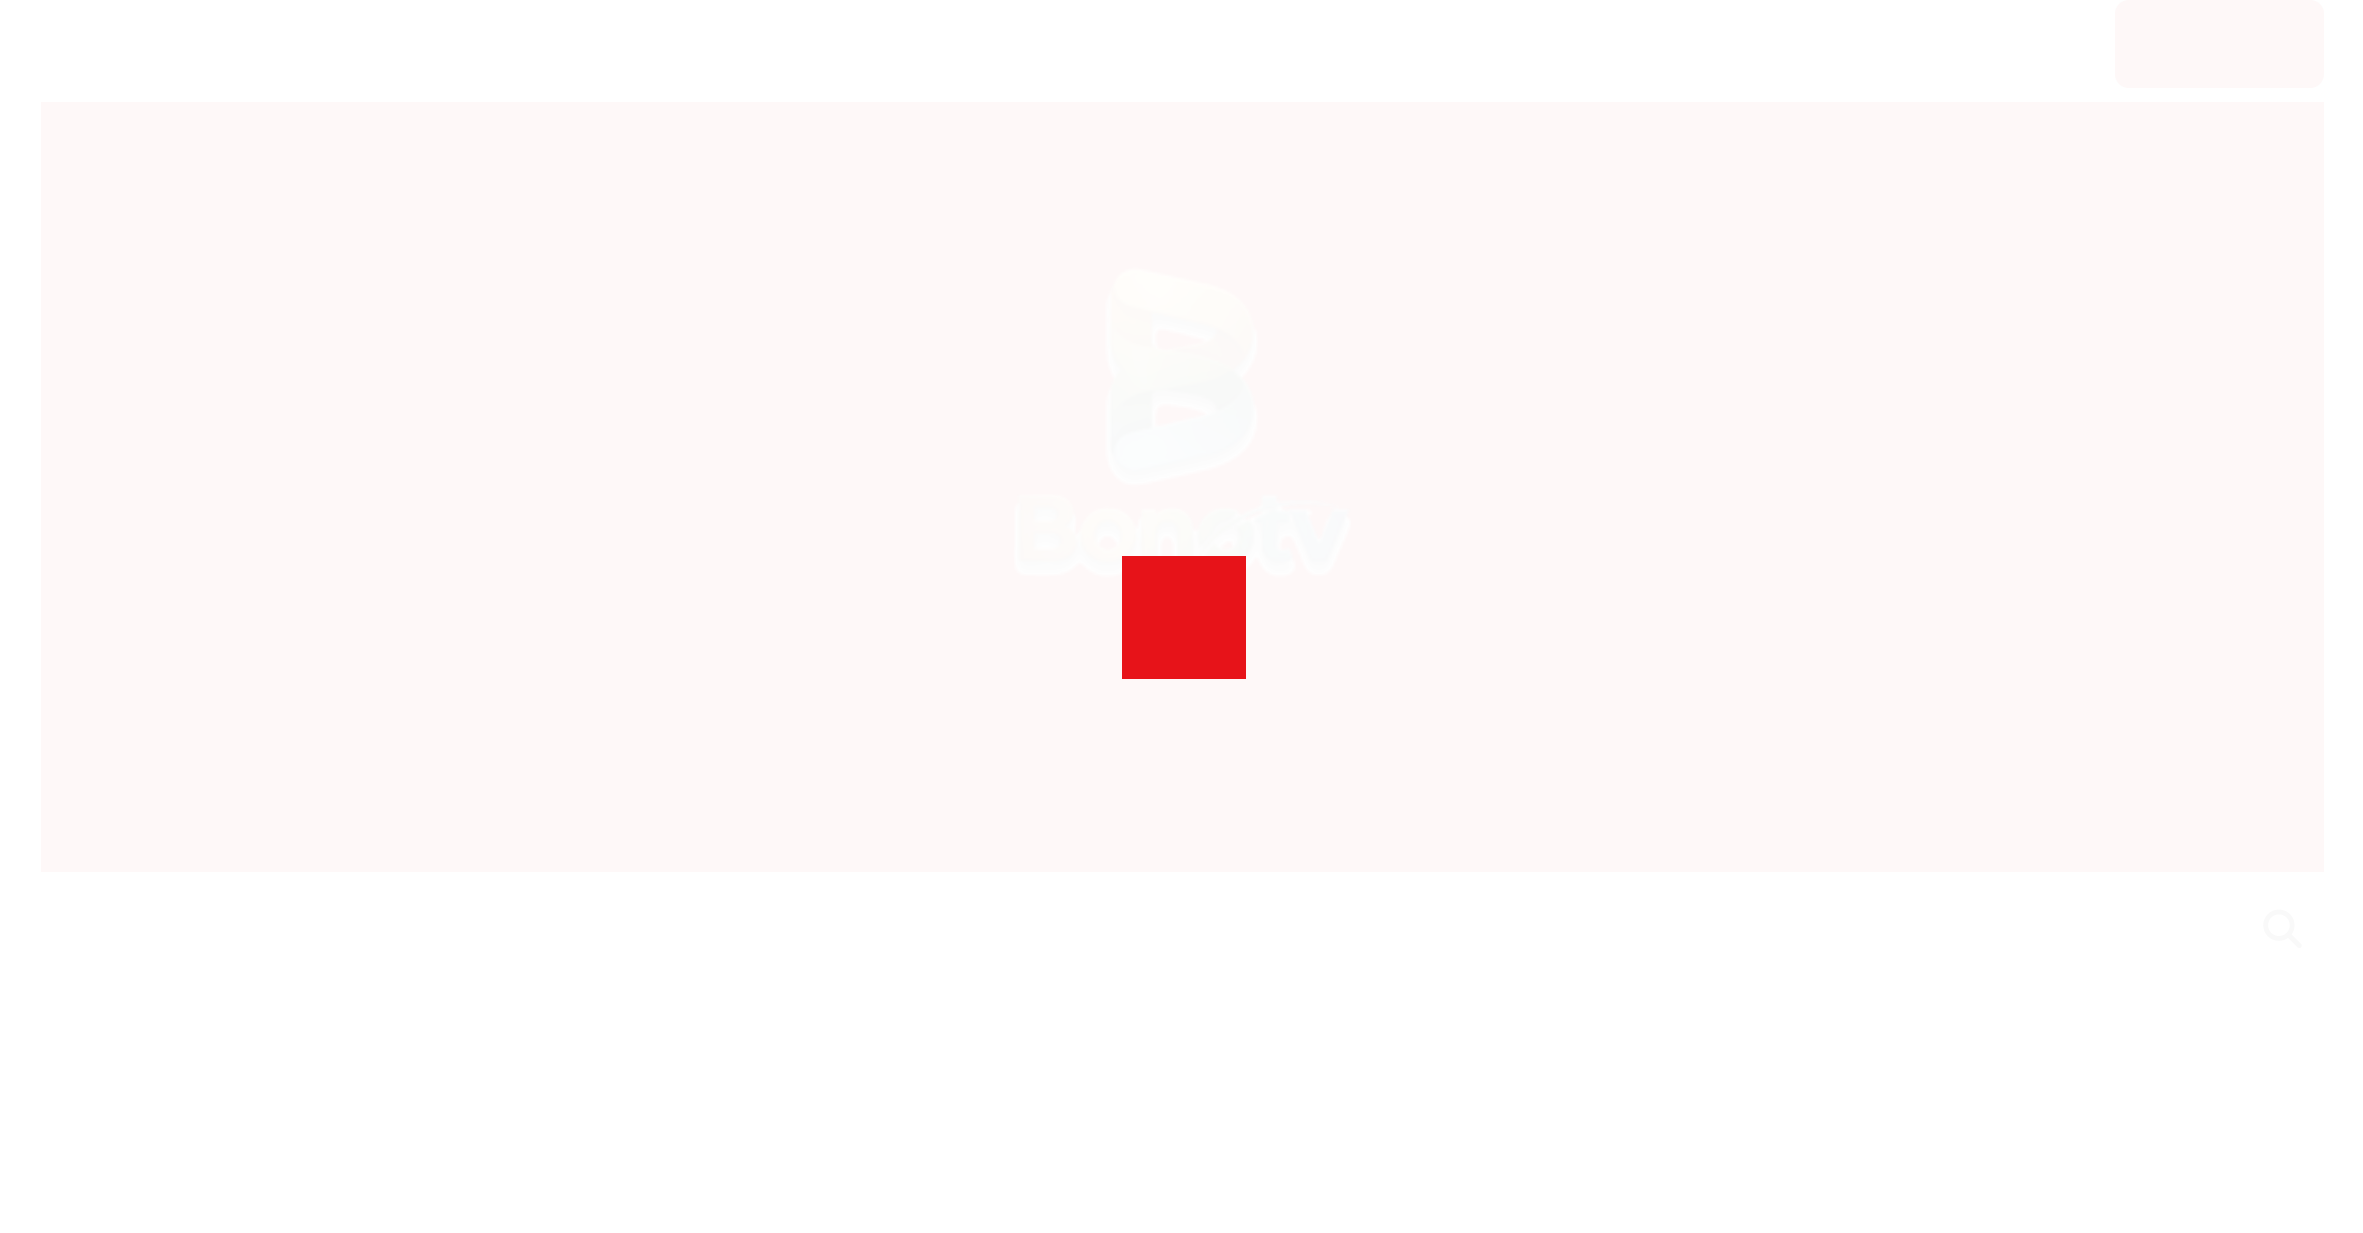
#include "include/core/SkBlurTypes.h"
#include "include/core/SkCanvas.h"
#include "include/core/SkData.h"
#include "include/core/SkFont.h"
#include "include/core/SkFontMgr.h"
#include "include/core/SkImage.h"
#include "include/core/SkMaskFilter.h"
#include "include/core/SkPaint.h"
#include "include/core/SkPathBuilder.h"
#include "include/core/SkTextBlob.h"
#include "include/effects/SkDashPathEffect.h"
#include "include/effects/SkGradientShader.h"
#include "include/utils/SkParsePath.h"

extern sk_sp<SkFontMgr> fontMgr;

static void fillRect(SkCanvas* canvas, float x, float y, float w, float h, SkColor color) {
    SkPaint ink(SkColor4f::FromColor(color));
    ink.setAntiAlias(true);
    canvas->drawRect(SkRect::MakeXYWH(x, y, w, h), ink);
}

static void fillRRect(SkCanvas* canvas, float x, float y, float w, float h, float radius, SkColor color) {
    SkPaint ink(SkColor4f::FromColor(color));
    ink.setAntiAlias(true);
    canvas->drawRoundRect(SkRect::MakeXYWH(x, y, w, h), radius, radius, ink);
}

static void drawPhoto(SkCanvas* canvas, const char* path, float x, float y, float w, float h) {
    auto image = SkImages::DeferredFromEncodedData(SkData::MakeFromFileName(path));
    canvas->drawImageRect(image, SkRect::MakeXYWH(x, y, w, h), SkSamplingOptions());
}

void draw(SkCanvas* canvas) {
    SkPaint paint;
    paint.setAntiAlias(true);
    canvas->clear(0xFFFFFFFF);
    fillRRect(canvas, 2115, 0, 209, 88, 14, 0xFFFEF8F8);
    fillRect(canvas, 41, 102, 2283, 770, 0xFFFEF8F8);
    drawPhoto(canvas, "assets/img1.png", 1011, 266, 341, 313);
    drawPhoto(canvas, "assets/img2.png", 2263, 909, 39, 39);
    fillRect(canvas, 1122, 556, 124, 123, 0xFFE71319);
}
